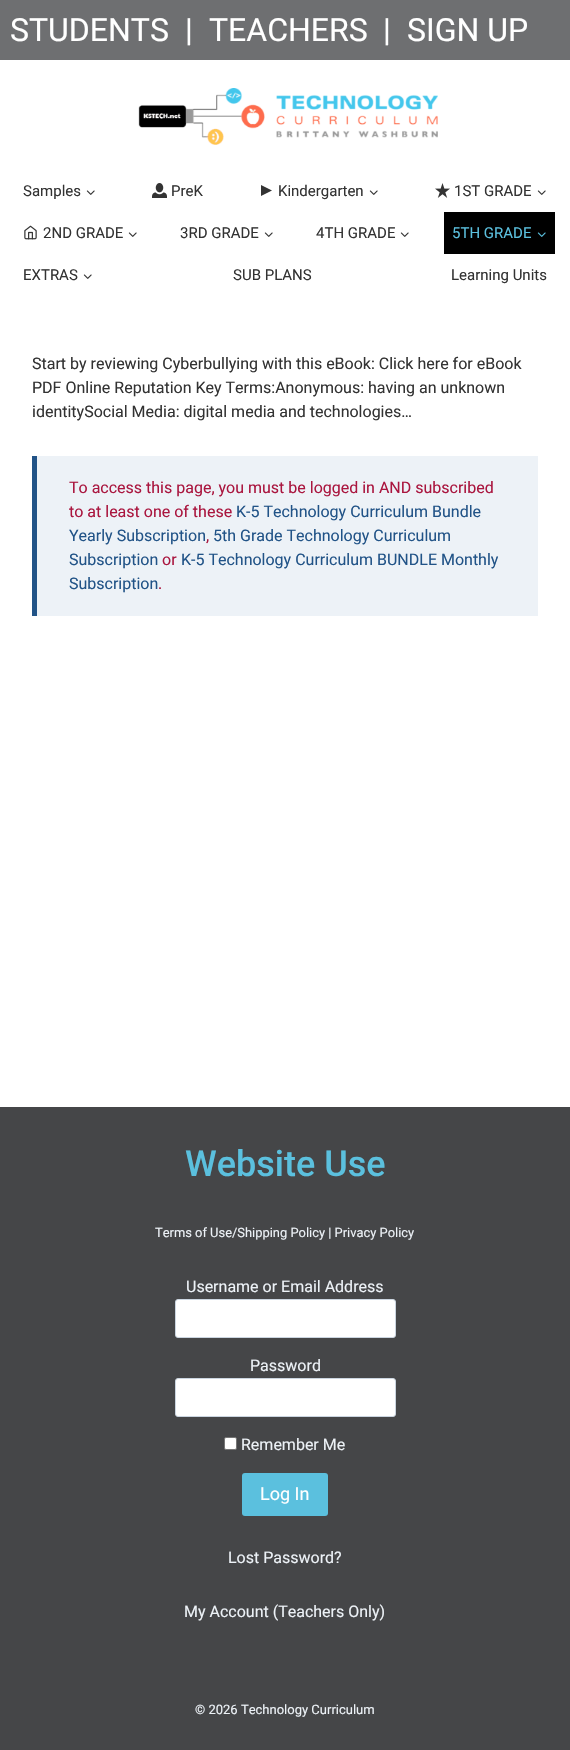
#include "include/core/SkBlurTypes.h"
#include "include/core/SkCanvas.h"
#include "include/core/SkData.h"
#include "include/core/SkFont.h"
#include "include/core/SkFontMgr.h"
#include "include/core/SkImage.h"
#include "include/core/SkMaskFilter.h"
#include "include/core/SkPaint.h"
#include "include/core/SkPathBuilder.h"
#include "include/core/SkTextBlob.h"
#include "include/effects/SkDashPathEffect.h"
#include "include/effects/SkGradientShader.h"
#include "include/utils/SkParsePath.h"

extern sk_sp<SkFontMgr> fontMgr;

static SkFont font(const char* family, int weight, float size, bool italic = false) {
    SkFontStyle style(weight, SkFontStyle::kNormal_Width,
        italic ? SkFontStyle::kItalic_Slant : SkFontStyle::kUpright_Slant);
    SkFont result(fontMgr->matchFamilyStyle(family, style), size);
    result.setSubpixel(true);
    return result;
}

static void drawLabel(SkCanvas* canvas, const char* s, float x, float y, const SkFont& font, SkColor color) {
    SkPaint ink(SkColor4f::FromColor(color));
    ink.setAntiAlias(true);
    canvas->drawString(s, x, y, font, ink);
}

static void fillRect(SkCanvas* canvas, float x, float y, float w, float h, SkColor color) {
    SkPaint ink(SkColor4f::FromColor(color));
    ink.setAntiAlias(true);
    canvas->drawRect(SkRect::MakeXYWH(x, y, w, h), ink);
}

static void fillRRect(SkCanvas* canvas, float x, float y, float w, float h, float radius, SkColor color) {
    SkPaint ink(SkColor4f::FromColor(color));
    ink.setAntiAlias(true);
    canvas->drawRoundRect(SkRect::MakeXYWH(x, y, w, h), radius, radius, ink);
}

static void drawPhoto(SkCanvas* canvas, const char* path, float x, float y, float w, float h) {
    auto image = SkImages::DeferredFromEncodedData(SkData::MakeFromFileName(path));
    canvas->drawImageRect(image, SkRect::MakeXYWH(x, y, w, h), SkSamplingOptions());
}

static SkPath parsePath(const char* data, bool evenOdd = false) {
    SkPath result = *SkParsePath::FromSVGString(data);
    if (evenOdd) result.setFillType(SkPathFillType::kEvenOdd);
    return result;
}

void draw(SkCanvas* canvas) {
    SkPaint paint;
    paint.setAntiAlias(true);
    canvas->clear(0xFFFFFFFF);
    fillRect(canvas, 0, 0, 570, 60, 0xFF6E6F71);
    SkFont font1 = font("Roboto", 400, 32);
    drawLabel(canvas, "STUDENTS", 10, 41, font1, 0xFFFFFFFF);
    drawLabel(canvas, "|", 185, 41, font1, 0xFFFFFFFF);
    drawLabel(canvas, "TEACHERS", 209, 41, font1, 0xFFFFFFFF);
    drawLabel(canvas, "|", 383, 41, font1, 0xFFFFFFFF);
    drawLabel(canvas, "SIGN UP", 407, 41, font1, 0xFFFFFFFF);
    drawPhoto(canvas, "assets/img1.png", 138, 88, 300, 57);
    SkFont font2 = font("Roboto", 400, 15);
    drawLabel(canvas, "Samples", 23, 196, font2, 0xFF333333);
    drawPhoto(canvas, "assets/img2.png", 86, 190, 9, 5);
    drawPhoto(canvas, "assets/img3.png", 152, 183, 15, 15);
    drawLabel(canvas, "PreK", 171, 196, font2, 0xFF333333);
    paint.setColor(0xFF333333);
    canvas->drawPath(parsePath("M261 185V196L272 190.5Z"), paint);
    drawLabel(canvas, "Kindergarten", 278, 196, font2, 0xFF333333);
    drawPhoto(canvas, "assets/img2.png", 369, 190, 9, 5);
    drawPhoto(canvas, "assets/img4.png", 435, 183, 15, 15);
    drawLabel(canvas, "1ST GRADE", 454, 196, font2, 0xFF333333);
    drawPhoto(canvas, "assets/img2.png", 537, 190, 9, 5);
    drawPhoto(canvas, "assets/img5.png", 24, 225, 13, 15);
    drawLabel(canvas, "2ND GRADE", 43, 238, font2, 0xFF333333);
    drawPhoto(canvas, "assets/img2.png", 128, 232, 9, 5);
    drawLabel(canvas, "3RD GRADE", 180, 238, font2, 0xFF333333);
    drawPhoto(canvas, "assets/img2.png", 264, 232, 9, 5);
    drawLabel(canvas, "4TH GRADE", 316, 238, font2, 0xFF333333);
    drawPhoto(canvas, "assets/img2.png", 400, 232, 9, 5);
    fillRect(canvas, 444, 212, 111, 42, 0xFF000000);
    drawLabel(canvas, "5TH GRADE", 452, 238, font2, 0xFF5BC0DE);
    drawPhoto(canvas, "assets/img6.png", 537, 232, 9, 5);
    drawLabel(canvas, "EXTRAS", 23, 280, font2, 0xFF333333);
    drawPhoto(canvas, "assets/img2.png", 83, 274, 9, 5);
    drawLabel(canvas, "SUB PLANS", 233, 280, font2, 0xFF333333);
    drawLabel(canvas, "Learning Units", 451, 280, font2, 0xFF333333);
    SkFont font3 = font("Roboto", 400, 16);
    drawLabel(canvas, "Start by reviewing Cyberbullying with this eBook: Click here for eBook", 32, 369, font3, 0xFF333333);
    drawLabel(canvas, "PDF Online Reputation Key Terms:Anonymous: having an unknown", 32, 393, font3, 0xFF333333);
    drawLabel(canvas, "identitySocial Media: digital media and technologies…", 32, 417, font3, 0xFF333333);
    fillRect(canvas, 37, 456, 501, 160, 0xFFEDF2F7);
    fillRect(canvas, 32, 456, 5, 160, 0xFF215387);
    drawLabel(canvas, "To access this page, you must be logged in AND subscribed", 69, 493, font3, 0xFFAA163F);
    drawLabel(canvas, "to at least one of these", 69, 517, font3, 0xFFAA163F);
    drawLabel(canvas, "K-5 Technology Curriculum Bundle", 236, 517, font3, 0xFF215387);
    drawLabel(canvas, "Yearly Subscription", 69, 541, font3, 0xFF215387);
    drawLabel(canvas, ",", 206, 541, font3, 0xFFAA163F);
    drawLabel(canvas, "5th Grade Technology Curriculum", 213, 541, font3, 0xFF215387);
    drawLabel(canvas, "Subscription", 69, 565, font3, 0xFF215387);
    drawLabel(canvas, "or", 162, 565, font3, 0xFFAA163F);
    drawLabel(canvas, "K-5 Technology Curriculum BUNDLE Monthly", 181, 565, font3, 0xFF215387);
    drawLabel(canvas, "Subscription", 69, 589, font3, 0xFF215387);
    drawLabel(canvas, ".", 158, 589, font3, 0xFFAA163F);
    fillRect(canvas, 0, 1107, 570, 643, 0xFF454648);
    SkFont font4 = font("Roboto", 500, 36);
    drawLabel(canvas, "Website Use", 185, 1176, font4, 0xFF5BC0DE);
    SkFont font5 = font("Roboto", 400, 12.9f);
    drawLabel(canvas, "Terms of Use/Shipping Policy | Privacy Policy", 155, 1237, font5, 0xFFEDF2F7);
    drawLabel(canvas, "Username or Email Address", 186, 1292, font3, 0xFFEDF2F7);
    paint.setColor(0xFFFFFFFF);
    canvas->drawRoundRect(SkRect::MakeXYWH(175.5f, 1299.5f, 220, 38), 2.5f, 2.5f, paint);
    paint.setStroke(true);
    paint.setStrokeWidth(1);
    paint.setColor(0xFFCBD5E0);
    canvas->drawRoundRect(SkRect::MakeXYWH(175.5f, 1299.5f, 220, 38), 2.5f, 2.5f, paint);
    drawLabel(canvas, "Password", 250, 1371, font3, 0xFFEDF2F7);
    paint.setStroke(false);
    paint.setColor(0xFFFFFFFF);
    canvas->drawRoundRect(SkRect::MakeXYWH(175.5f, 1378.5f, 220, 38), 2.5f, 2.5f, paint);
    paint.setStroke(true);
    paint.setColor(0xFFCBD5E0);
    canvas->drawRoundRect(SkRect::MakeXYWH(175.5f, 1378.5f, 220, 38), 2.5f, 2.5f, paint);
    paint.setStroke(false);
    paint.setColor(0xFFFFFFFF);
    canvas->drawRoundRect(SkRect::MakeXYWH(224.5f, 1437.5f, 12, 12), 1.5f, 1.5f, paint);
    paint.setStroke(true);
    paint.setColor(0xFF767676);
    canvas->drawRoundRect(SkRect::MakeXYWH(224.5f, 1437.5f, 12, 12), 1.5f, 1.5f, paint);
    drawLabel(canvas, "Remember Me", 241, 1450, font3, 0xFFEDF2F7);
    fillRRect(canvas, 242, 1473, 86, 43, 3, 0xFF5BC0DE);
    SkFont font6 = font("Roboto", 400, 18);
    drawLabel(canvas, "Log In", 260, 1500, font6, 0xFFFFFFFF);
    drawLabel(canvas, "Lost Password?", 228, 1563, font3, 0xFFEDF2F7);
    drawLabel(canvas, "My Account (Teachers Only)", 184, 1617, font3, 0xFFEDF2F7);
    SkFont font7 = font("Roboto", 400, 13);
    drawLabel(canvas, "© 2026 Technology Curriculum", 195, 1714, font7, 0xFFEDF2F7);
}
